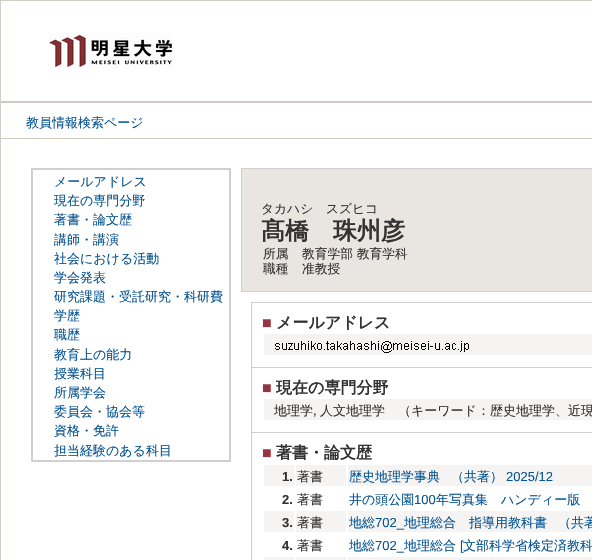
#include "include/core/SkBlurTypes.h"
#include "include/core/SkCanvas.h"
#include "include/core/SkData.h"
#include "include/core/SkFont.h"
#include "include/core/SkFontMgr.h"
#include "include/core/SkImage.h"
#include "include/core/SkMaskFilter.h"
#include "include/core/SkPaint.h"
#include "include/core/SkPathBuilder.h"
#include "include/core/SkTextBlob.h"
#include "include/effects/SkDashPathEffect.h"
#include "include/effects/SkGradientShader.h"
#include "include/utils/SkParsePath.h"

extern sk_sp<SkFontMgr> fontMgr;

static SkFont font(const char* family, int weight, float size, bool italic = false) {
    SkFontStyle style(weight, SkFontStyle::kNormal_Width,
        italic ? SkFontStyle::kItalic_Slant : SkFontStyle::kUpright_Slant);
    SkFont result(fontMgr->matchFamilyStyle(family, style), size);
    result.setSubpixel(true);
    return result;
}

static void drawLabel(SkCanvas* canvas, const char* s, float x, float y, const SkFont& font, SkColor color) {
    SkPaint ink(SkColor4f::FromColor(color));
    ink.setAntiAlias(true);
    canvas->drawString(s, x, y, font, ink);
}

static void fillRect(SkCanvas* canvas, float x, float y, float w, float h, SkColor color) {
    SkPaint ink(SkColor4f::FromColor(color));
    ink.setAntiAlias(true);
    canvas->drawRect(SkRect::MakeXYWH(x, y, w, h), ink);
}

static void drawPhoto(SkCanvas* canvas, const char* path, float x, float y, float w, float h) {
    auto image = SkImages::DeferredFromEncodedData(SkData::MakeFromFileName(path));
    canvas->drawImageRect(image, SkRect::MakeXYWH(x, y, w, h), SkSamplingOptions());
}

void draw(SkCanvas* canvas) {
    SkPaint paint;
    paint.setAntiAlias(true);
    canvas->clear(0xFFFFFFFF);
    paint.setStroke(true);
    paint.setStrokeWidth(1);
    paint.setColor(0xFFD2CEC8);
    canvas->drawRect(SkRect::MakeXYWH(0.5f, 0.5f, 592, 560), paint);
    drawPhoto(canvas, "assets/img1.png", 49, 33, 124, 36);
    fillRect(canvas, 1, 101, 591, 2, 0xFFD0CABF);
    fillRect(canvas, 1, 138, 591, 1, 0xFFD0CABF);
    SkFont font1 = font("WenQuanYi Zen Hei", 500, 13);
    drawLabel(canvas, "教員情報検索ページ", 26, 127, font1, 0xFF075492);
    fillRect(canvas, 31, 168, 200, 294, 0xFFD0D0D0);
    fillRect(canvas, 33, 170, 196, 290, 0xFFFFFFFF);
    drawLabel(canvas, "メールアドレス", 54, 186, font1, 0xFF075492);
    drawLabel(canvas, "現在の専門分野", 54, 205, font1, 0xFF075492);
    drawLabel(canvas, "著書・論文歴", 54, 224, font1, 0xFF075492);
    drawLabel(canvas, "講師・講演", 54, 244, font1, 0xFF075492);
    drawLabel(canvas, "社会における活動", 54, 263, font1, 0xFF075492);
    drawLabel(canvas, "学会発表", 54, 282, font1, 0xFF075492);
    drawLabel(canvas, "研究課題・受託研究・科研費", 54, 301, font1, 0xFF075492);
    drawLabel(canvas, "学歴", 54, 320, font1, 0xFF075492);
    drawLabel(canvas, "職歴", 54, 339, font1, 0xFF075492);
    drawLabel(canvas, "教育上の能力", 54, 359, font1, 0xFF075492);
    drawLabel(canvas, "授業科目", 54, 378, font1, 0xFF075492);
    drawLabel(canvas, "所属学会", 54, 397, font1, 0xFF075492);
    drawLabel(canvas, "委員会・協会等", 54, 416, font1, 0xFF075492);
    drawLabel(canvas, "資格・免許", 54, 435, font1, 0xFF075492);
    drawLabel(canvas, "担当経験のある科目", 54, 455, font1, 0xFF075492);
    fillRect(canvas, 241, 168, 351, 124, 0xFFD0D0D0);
    fillRect(canvas, 242, 169, 350, 122, 0xFFE9E6E2);
    SkFont font2 = font("WenQuanYi Zen Hei", 500, 12.75f);
    drawLabel(canvas, "タカハシ　スズヒコ", 261, 213, font2, 0xFF333333);
    SkFont font3 = font("WenQuanYi Zen Hei", 700, 24);
    drawLabel(canvas, "髙橋　珠州彦", 261, 239, font3, 0xFF333333);
    drawLabel(canvas, "所属", 263, 258, font2, 0xFF333333);
    drawLabel(canvas, "教育学部 教育学科", 302, 258, font2, 0xFF333333);
    drawLabel(canvas, "職種", 263, 273, font2, 0xFF333333);
    drawLabel(canvas, "准教授", 302, 273, font2, 0xFF333333);
    fillRect(canvas, 251, 302, 341, 258, 0xFFD0D0D0);
    fillRect(canvas, 252, 303, 340, 64, 0xFFFFFFFF);
    SkFont font4 = font("Liberation Sans", 400, 16);
    drawLabel(canvas, "■", 262, 328, font4, 0xFF95353F);
    SkFont font5 = font("WenQuanYi Zen Hei", 700, 16);
    drawLabel(canvas, "メールアドレス", 276, 328, font5, 0xFF333333);
    fillRect(canvas, 264, 334, 328, 21, 0xFFF6F4F3);
    drawPhoto(canvas, "assets/img2.png", 275, 341, 194, 12);
    fillRect(canvas, 252, 368, 340, 64, 0xFFFFFFFF);
    drawLabel(canvas, "■", 262, 393, font4, 0xFF95353F);
    drawLabel(canvas, "現在の専門分野", 276, 393, font5, 0xFF333333);
    fillRect(canvas, 264, 399, 328, 21, 0xFFF6F4F3);
    drawLabel(canvas, "地理学", 274, 415, font1, 0xFF333333);
    SkFont font6 = font("Liberation Sans", 400, 13);
    drawLabel(canvas, ",", 313, 415, font6, 0xFF333333);
    drawLabel(canvas, "人文地理学　（キーワード：歴史地理学、近現", 320, 415, font1, 0xFF333333);
    fillRect(canvas, 252, 433, 340, 127, 0xFFFFFFFF);
    drawLabel(canvas, "■", 262, 458, font4, 0xFF95353F);
    drawLabel(canvas, "著書・論文歴", 276, 458, font5, 0xFF333333);
    fillRect(canvas, 264, 465, 30, 21, 0xFFF6F4F3);
    SkFont font7 = font("Liberation Sans", 700, 13);
    drawLabel(canvas, "1.", 282, 481, font7, 0xFF333333);
    fillRect(canvas, 296, 465, 50, 21, 0xFFF6F4F3);
    drawLabel(canvas, "著書", 297, 481, font1, 0xFF333333);
    fillRect(canvas, 348, 465, 244, 21, 0xFFF6F4F3);
    drawLabel(canvas, "歴史地理学事典", 349, 481, font1, 0xFF075492);
    drawLabel(canvas, "（共著）", 451, 481, font1, 0xFF075492);
    drawLabel(canvas, "2025/12", 506, 481, font6, 0xFF075492);
    drawLabel(canvas, "2.", 282, 504, font7, 0xFF333333);
    drawLabel(canvas, "著書", 297, 504, font1, 0xFF333333);
    drawLabel(canvas, "井の頭公園", 349, 504, font1, 0xFF075492);
    drawLabel(canvas, "100", 414, 504, font6, 0xFF075492);
    drawLabel(canvas, "年写真集　ハンディー版", 436, 504, font1, 0xFF075492);
    fillRect(canvas, 264, 511, 30, 21, 0xFFF6F4F3);
    drawLabel(canvas, "3.", 282, 527, font7, 0xFF333333);
    fillRect(canvas, 296, 511, 50, 21, 0xFFF6F4F3);
    drawLabel(canvas, "著書", 297, 527, font1, 0xFF333333);
    fillRect(canvas, 348, 511, 244, 21, 0xFFF6F4F3);
    drawLabel(canvas, "地総", 349, 527, font1, 0xFF075492);
    drawLabel(canvas, "702_", 375, 527, font6, 0xFF075492);
    drawLabel(canvas, "地理総合　指導用教科書", 404, 527, font1, 0xFF075492);
    drawLabel(canvas, "（共著", 558, 527, font1, 0xFF075492);
    drawLabel(canvas, "4.", 282, 550, font7, 0xFF333333);
    drawLabel(canvas, "著書", 297, 550, font1, 0xFF333333);
    drawLabel(canvas, "地総", 349, 550, font1, 0xFF075492);
    drawLabel(canvas, "702_", 375, 550, font6, 0xFF075492);
    drawLabel(canvas, "地理総合", 404, 550, font1, 0xFF075492);
    drawLabel(canvas, "[", 460, 550, font6, 0xFF075492);
    drawLabel(canvas, "文部科学省検定済教科", 463, 550, font1, 0xFF075492);
    fillRect(canvas, 264, 557, 30, 3, 0xFFF6F4F3);
    fillRect(canvas, 296, 557, 50, 3, 0xFFF6F4F3);
    fillRect(canvas, 348, 557, 244, 3, 0xFFF6F4F3);
}
